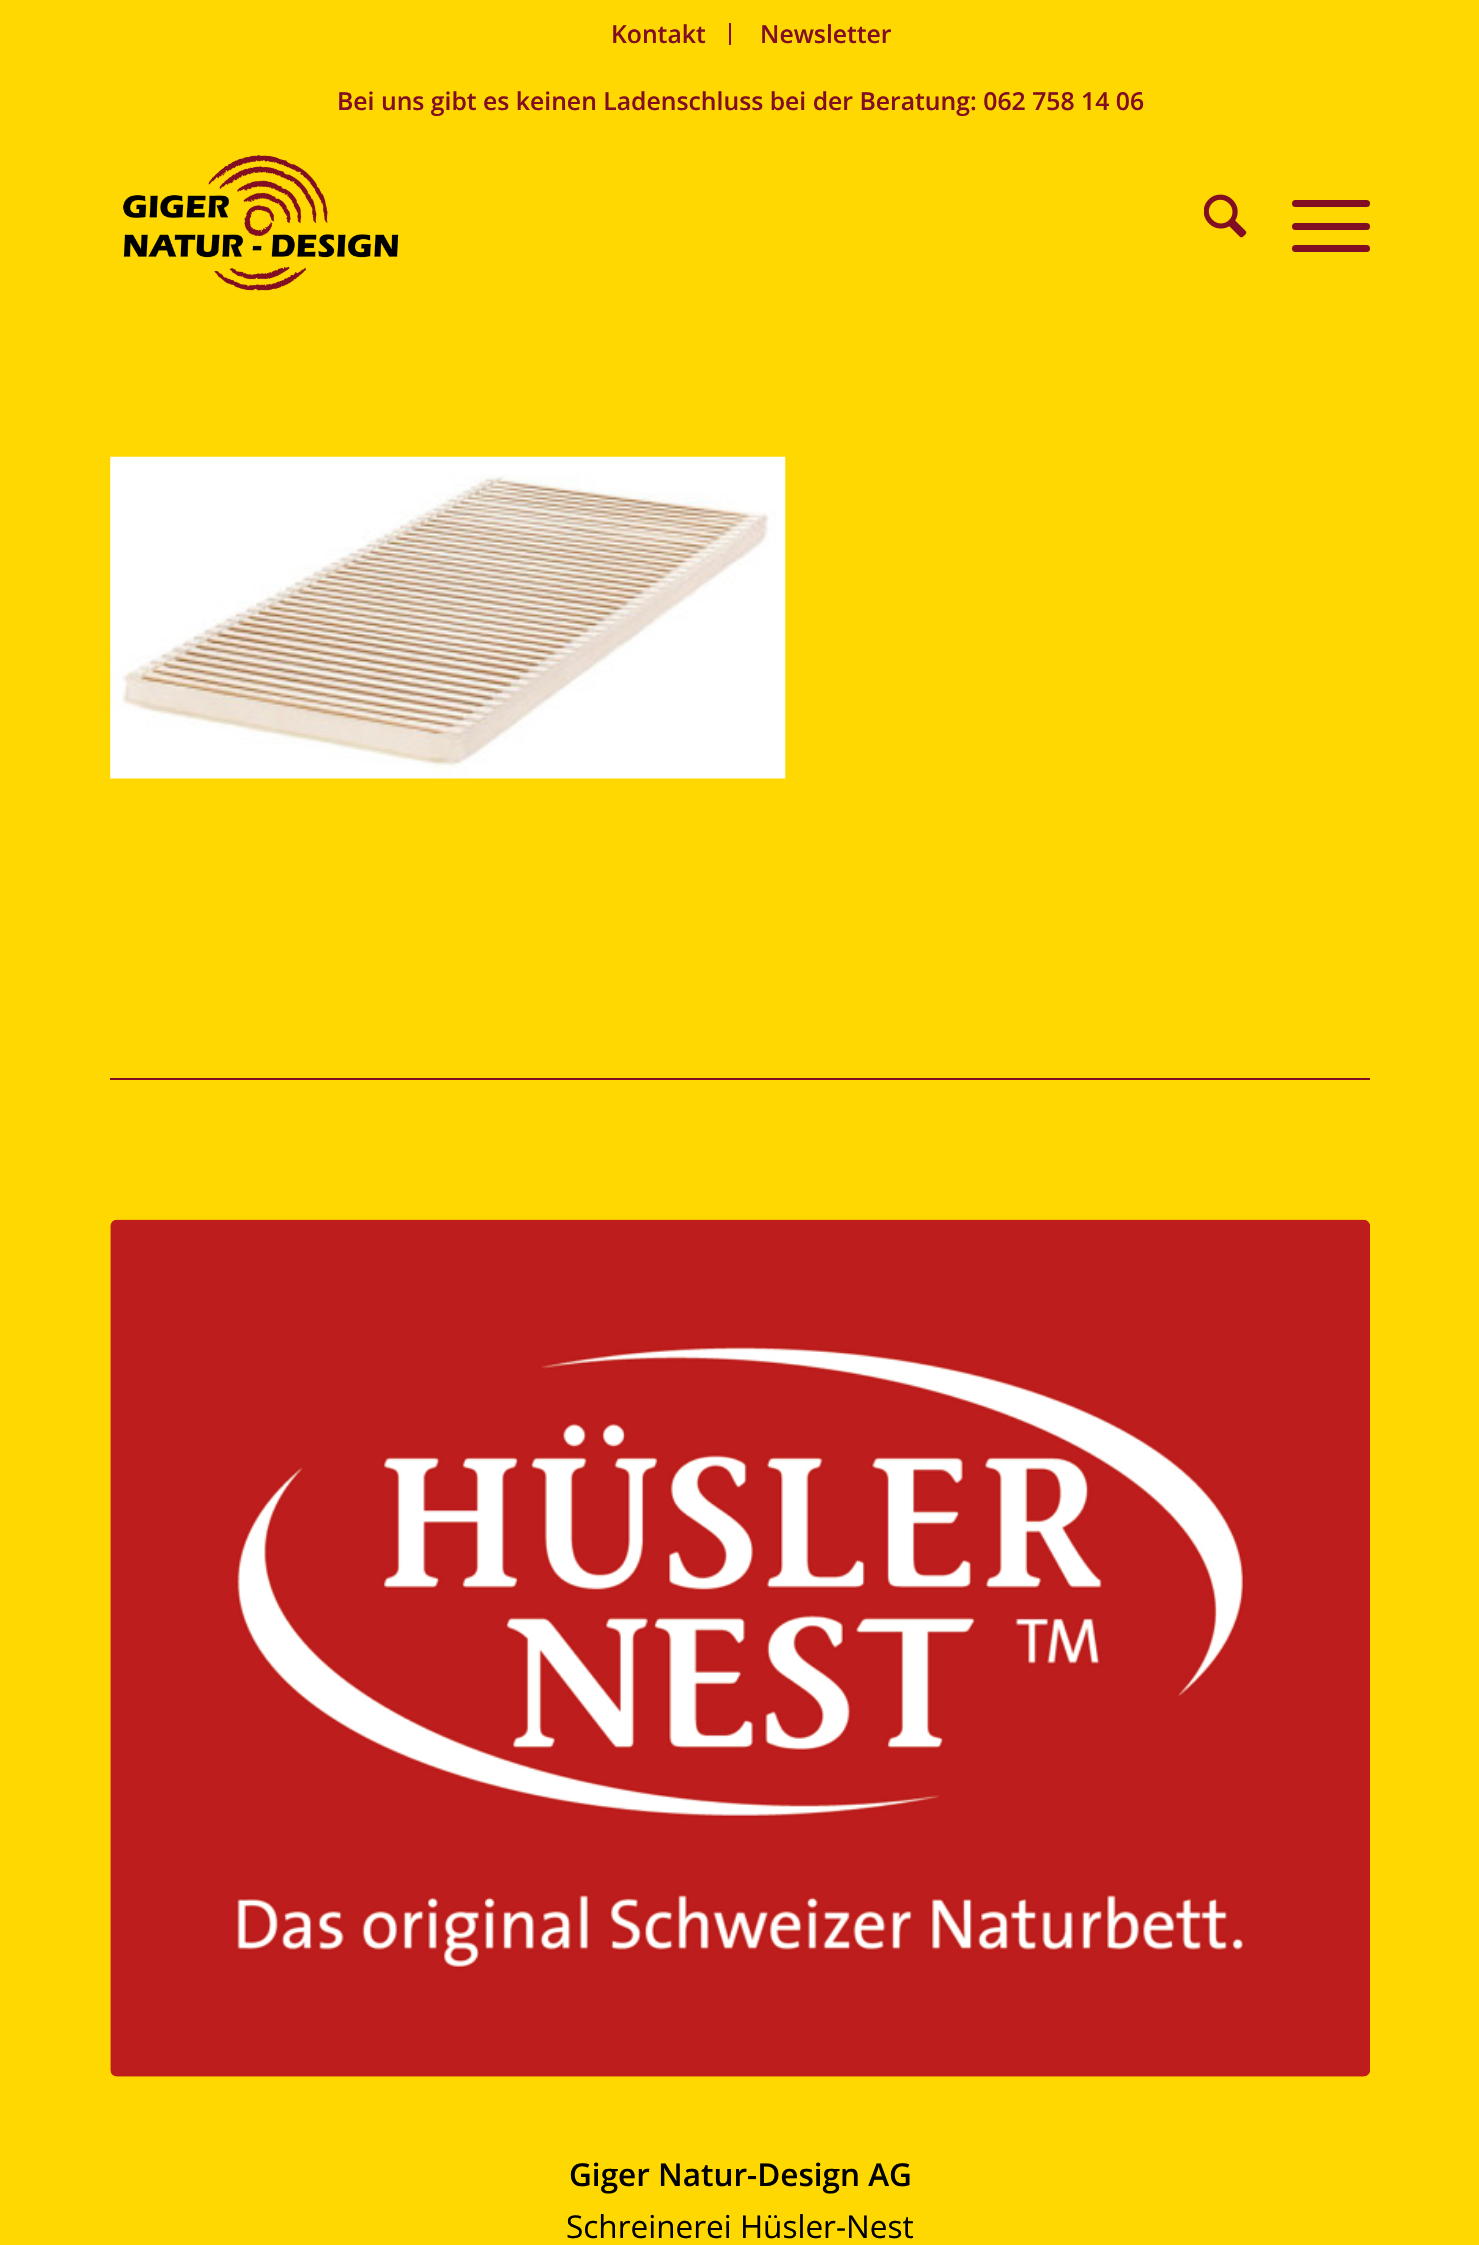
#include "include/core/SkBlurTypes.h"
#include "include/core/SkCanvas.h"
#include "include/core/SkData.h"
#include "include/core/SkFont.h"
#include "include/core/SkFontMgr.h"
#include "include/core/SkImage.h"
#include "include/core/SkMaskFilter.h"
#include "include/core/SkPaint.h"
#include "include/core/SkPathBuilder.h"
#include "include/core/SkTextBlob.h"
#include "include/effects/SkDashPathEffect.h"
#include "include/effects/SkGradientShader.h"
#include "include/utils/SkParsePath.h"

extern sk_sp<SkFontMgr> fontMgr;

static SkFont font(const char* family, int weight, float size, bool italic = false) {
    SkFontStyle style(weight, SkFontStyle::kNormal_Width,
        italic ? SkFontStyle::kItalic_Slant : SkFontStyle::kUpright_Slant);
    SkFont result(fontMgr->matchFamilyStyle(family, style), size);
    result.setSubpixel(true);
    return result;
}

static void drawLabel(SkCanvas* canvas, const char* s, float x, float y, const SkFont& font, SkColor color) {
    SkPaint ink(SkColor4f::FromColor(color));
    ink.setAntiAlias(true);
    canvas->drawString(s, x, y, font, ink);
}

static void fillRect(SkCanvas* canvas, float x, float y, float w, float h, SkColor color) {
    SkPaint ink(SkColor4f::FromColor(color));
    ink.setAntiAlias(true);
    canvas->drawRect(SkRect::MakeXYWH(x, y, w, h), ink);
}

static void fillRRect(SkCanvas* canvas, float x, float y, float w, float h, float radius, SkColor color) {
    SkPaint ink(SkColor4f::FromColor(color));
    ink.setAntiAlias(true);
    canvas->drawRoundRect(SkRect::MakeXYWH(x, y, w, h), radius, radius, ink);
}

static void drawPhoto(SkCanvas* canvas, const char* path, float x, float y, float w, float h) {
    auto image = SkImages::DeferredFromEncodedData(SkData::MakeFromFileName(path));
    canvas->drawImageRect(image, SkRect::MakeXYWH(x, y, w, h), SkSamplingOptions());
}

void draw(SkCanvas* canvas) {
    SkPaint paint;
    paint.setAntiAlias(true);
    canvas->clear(0xFFFED800);
    fillRect(canvas, 729, 23, 2, 22, 0xFF810E23);
    SkFont font1 = font("Open Sans", 600, 24.75f);
    drawLabel(canvas, "Kontakt", 611, 43, font1, 0xFF810E23);
    drawLabel(canvas, "Newsletter", 760, 43, font1, 0xFF810E23);
    drawLabel(canvas, "Bei uns gibt es keinen Ladenschluss bei der Beratung: 062 758 14 06", 337, 110, font1, 0xFF810E23);
    drawPhoto(canvas, "assets/img1.png", 123, 155, 276, 136);
    drawPhoto(canvas, "assets/img2.png", 1204, 194, 43, 44);
    fillRRect(canvas, 1292, 223, 78, 7, 3.5f, 0xFF810E23);
    fillRRect(canvas, 1292, 200, 78, 7, 3.5f, 0xFF810E23);
    fillRRect(canvas, 1292, 245, 78, 7, 3.5f, 0xFF810E23);
    drawPhoto(canvas, "assets/img3.png", 110, 456, 676, 323);
    fillRect(canvas, 110, 1078, 1260, 2, 0xFF810E23);
    drawPhoto(canvas, "assets/img4.png", 110, 1219, 1260, 858);
    SkFont font2 = font("Open Sans", 600, 31.5f);
    drawLabel(canvas, "Giger Natur-Design AG", 569, 2186, font2, 0xFF000000);
    SkFont font3 = font("Open Sans", 400, 31.5f);
    drawLabel(canvas, "Schreinerei Hüsler-Nest", 566, 2238, font3, 0xFF000000);
}
